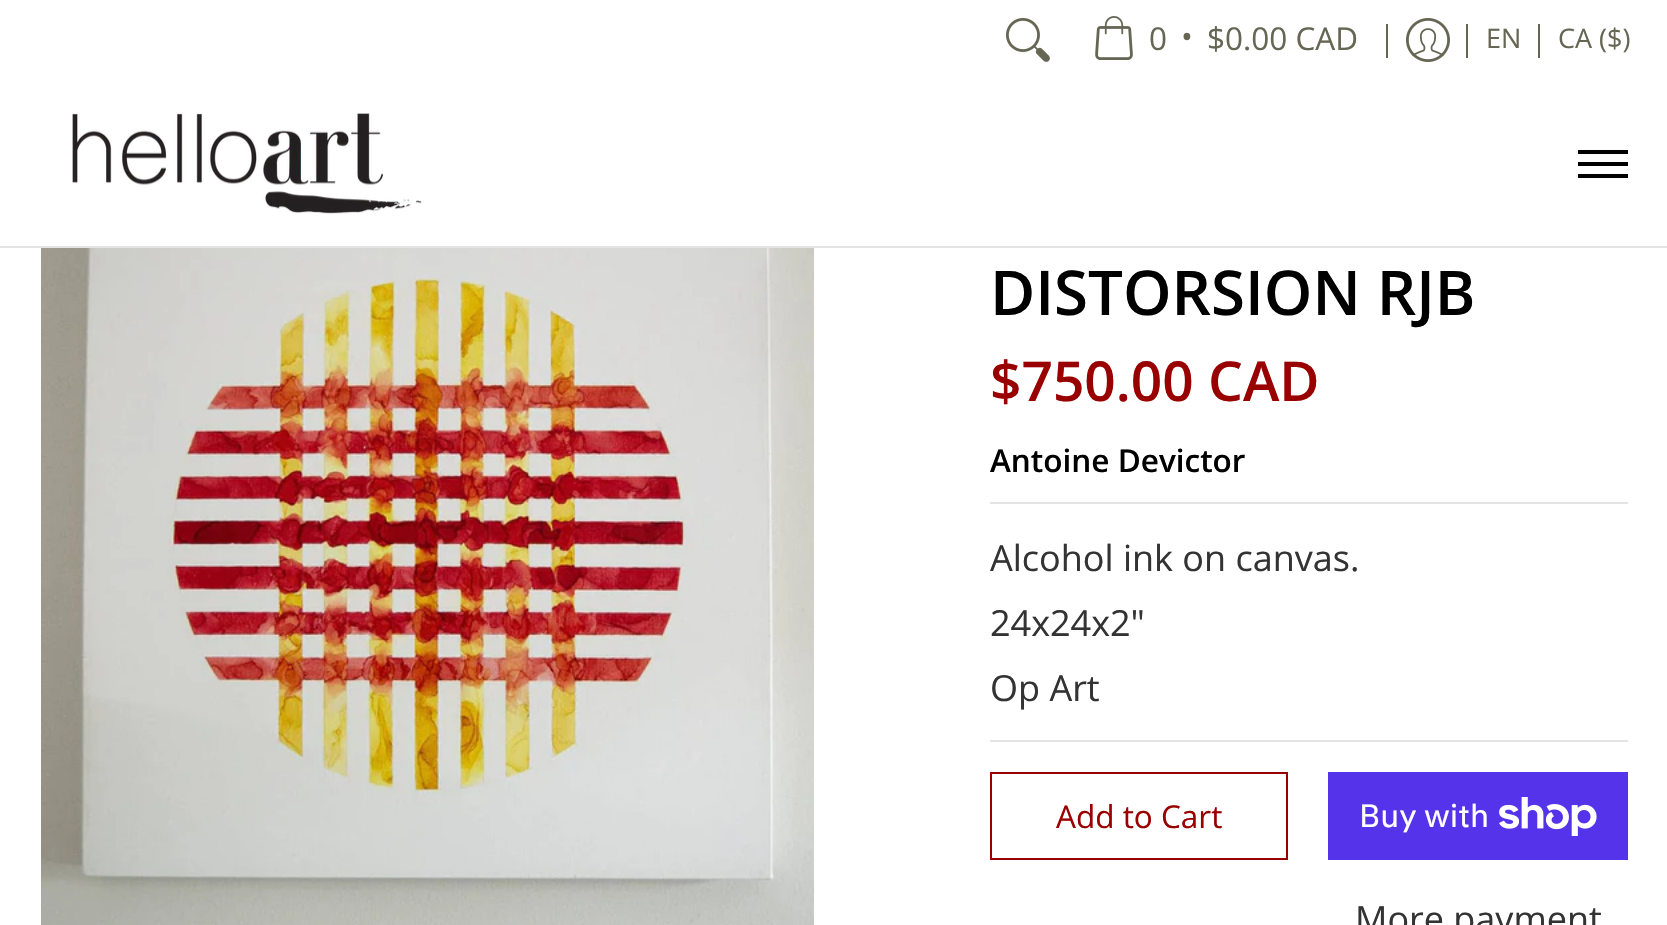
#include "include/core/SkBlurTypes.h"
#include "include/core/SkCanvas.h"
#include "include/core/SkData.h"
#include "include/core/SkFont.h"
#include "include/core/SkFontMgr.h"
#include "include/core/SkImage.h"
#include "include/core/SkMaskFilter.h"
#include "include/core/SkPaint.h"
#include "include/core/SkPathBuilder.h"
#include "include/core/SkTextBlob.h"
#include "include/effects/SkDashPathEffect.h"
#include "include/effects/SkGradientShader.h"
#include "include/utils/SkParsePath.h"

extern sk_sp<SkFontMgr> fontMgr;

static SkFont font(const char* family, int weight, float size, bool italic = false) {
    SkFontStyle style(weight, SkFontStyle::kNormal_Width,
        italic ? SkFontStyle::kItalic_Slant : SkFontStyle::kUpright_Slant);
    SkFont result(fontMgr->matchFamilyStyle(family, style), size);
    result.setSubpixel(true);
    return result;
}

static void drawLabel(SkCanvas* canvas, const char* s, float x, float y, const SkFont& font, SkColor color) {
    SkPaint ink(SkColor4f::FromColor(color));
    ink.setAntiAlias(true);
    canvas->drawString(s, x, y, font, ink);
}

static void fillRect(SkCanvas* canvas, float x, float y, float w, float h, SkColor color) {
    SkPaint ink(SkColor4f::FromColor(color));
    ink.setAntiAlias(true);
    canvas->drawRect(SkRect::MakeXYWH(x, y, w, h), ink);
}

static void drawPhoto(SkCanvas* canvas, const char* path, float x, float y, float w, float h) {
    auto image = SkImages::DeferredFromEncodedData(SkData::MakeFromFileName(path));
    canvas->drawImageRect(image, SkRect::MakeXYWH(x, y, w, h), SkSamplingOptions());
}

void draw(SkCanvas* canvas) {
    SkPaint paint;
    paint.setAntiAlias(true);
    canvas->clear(0xFFFFFFFF);
    drawPhoto(canvas, "assets/img1.png", 1006, 18, 44, 44);
    drawPhoto(canvas, "assets/img2.png", 1095, 16, 38, 44);
    SkFont font1 = font("Open Sans", 400, 31.5f);
    drawLabel(canvas, "0", 1149, 50, font1, 0xFF666655);
    drawLabel(canvas, "•", 1181, 48, font1, 0xFF666655);
    drawLabel(canvas, "$0.00 CAD", 1207, 50, font1, 0xFF666655);
    fillRect(canvas, 1386, 24, 2, 34, 0xFF666655);
    drawPhoto(canvas, "assets/img3.png", 1406, 18, 44, 44);
    fillRect(canvas, 1466, 24, 2, 34, 0xFF666655);
    SkFont font2 = font("Open Sans", 400, 27);
    drawLabel(canvas, "EN", 1486, 48, font2, 0xFF666655);
    fillRect(canvas, 1538, 24, 2, 34, 0xFF666655);
    drawLabel(canvas, "CA ($)", 1558, 48, font2, 0xFF666655);
    fillRect(canvas, 0, 246, 1667, 2, 0xFFE4E4E4);
    drawPhoto(canvas, "assets/img4.png", 72, 113, 350, 101);
    fillRect(canvas, 1578, 150, 50, 4, 0xFF000000);
    fillRect(canvas, 1578, 174, 50, 4, 0xFF000000);
    fillRect(canvas, 1578, 162, 50, 4, 0xFF000000);
    drawPhoto(canvas, "assets/img5.png", 41, 248, 773, 677);
    SkFont font3 = font("Open Sans", 600, 61.75f);
    drawLabel(canvas, "DISTORSION RJB", 990, 315, font3, 0xFF000000);
    SkFont font4 = font("Open Sans", 600, 55);
    drawLabel(canvas, "$750.00 CAD", 990, 401, font4, 0xFF990000);
    SkFont font5 = font("Open Sans", 600, 31.5f);
    drawLabel(canvas, "Antoine Devictor", 990, 472, font5, 0xFF000000);
    fillRect(canvas, 990, 502, 638, 2, 0xFFE4E4E4);
    SkFont font6 = font("Open Sans", 400, 36);
    drawLabel(canvas, "Alcohol ink on canvas.", 990, 571, font6, 0xFF333333);
    drawLabel(canvas, "24x24x2\"", 990, 636, font6, 0xFF333333);
    fillRect(canvas, 990, 740, 638, 2, 0xFFE4E4E4);
    drawLabel(canvas, "Op Art", 990, 701, font6, 0xFF333333);
    paint.setStroke(true);
    paint.setStrokeWidth(2);
    paint.setColor(0xFF990000);
    canvas->drawRect(SkRect::MakeXYWH(991, 773, 296, 86), paint);
    drawLabel(canvas, "Add to Cart", 1056, 828, font1, 0xFF990000);
    fillRect(canvas, 1328, 772, 300, 88, 0xFF5433EB);
    SkFont font7 = font("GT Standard", 400, 32);
    drawLabel(canvas, "Buy with", 1359, 827, font7, 0xFFFFFFFF);
    drawPhoto(canvas, "assets/img6.png", 1499, 797, 98, 39);
    drawLabel(canvas, "More payment", 1355, 932, font6, 0xFF333333);
}
